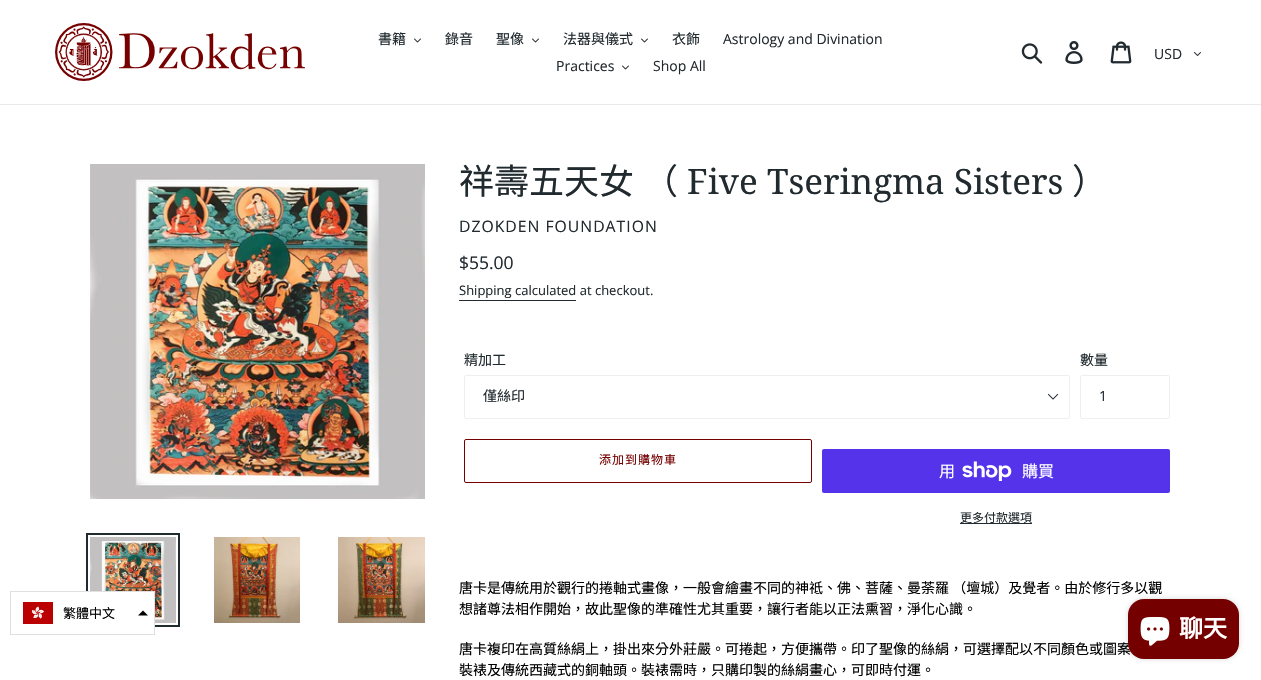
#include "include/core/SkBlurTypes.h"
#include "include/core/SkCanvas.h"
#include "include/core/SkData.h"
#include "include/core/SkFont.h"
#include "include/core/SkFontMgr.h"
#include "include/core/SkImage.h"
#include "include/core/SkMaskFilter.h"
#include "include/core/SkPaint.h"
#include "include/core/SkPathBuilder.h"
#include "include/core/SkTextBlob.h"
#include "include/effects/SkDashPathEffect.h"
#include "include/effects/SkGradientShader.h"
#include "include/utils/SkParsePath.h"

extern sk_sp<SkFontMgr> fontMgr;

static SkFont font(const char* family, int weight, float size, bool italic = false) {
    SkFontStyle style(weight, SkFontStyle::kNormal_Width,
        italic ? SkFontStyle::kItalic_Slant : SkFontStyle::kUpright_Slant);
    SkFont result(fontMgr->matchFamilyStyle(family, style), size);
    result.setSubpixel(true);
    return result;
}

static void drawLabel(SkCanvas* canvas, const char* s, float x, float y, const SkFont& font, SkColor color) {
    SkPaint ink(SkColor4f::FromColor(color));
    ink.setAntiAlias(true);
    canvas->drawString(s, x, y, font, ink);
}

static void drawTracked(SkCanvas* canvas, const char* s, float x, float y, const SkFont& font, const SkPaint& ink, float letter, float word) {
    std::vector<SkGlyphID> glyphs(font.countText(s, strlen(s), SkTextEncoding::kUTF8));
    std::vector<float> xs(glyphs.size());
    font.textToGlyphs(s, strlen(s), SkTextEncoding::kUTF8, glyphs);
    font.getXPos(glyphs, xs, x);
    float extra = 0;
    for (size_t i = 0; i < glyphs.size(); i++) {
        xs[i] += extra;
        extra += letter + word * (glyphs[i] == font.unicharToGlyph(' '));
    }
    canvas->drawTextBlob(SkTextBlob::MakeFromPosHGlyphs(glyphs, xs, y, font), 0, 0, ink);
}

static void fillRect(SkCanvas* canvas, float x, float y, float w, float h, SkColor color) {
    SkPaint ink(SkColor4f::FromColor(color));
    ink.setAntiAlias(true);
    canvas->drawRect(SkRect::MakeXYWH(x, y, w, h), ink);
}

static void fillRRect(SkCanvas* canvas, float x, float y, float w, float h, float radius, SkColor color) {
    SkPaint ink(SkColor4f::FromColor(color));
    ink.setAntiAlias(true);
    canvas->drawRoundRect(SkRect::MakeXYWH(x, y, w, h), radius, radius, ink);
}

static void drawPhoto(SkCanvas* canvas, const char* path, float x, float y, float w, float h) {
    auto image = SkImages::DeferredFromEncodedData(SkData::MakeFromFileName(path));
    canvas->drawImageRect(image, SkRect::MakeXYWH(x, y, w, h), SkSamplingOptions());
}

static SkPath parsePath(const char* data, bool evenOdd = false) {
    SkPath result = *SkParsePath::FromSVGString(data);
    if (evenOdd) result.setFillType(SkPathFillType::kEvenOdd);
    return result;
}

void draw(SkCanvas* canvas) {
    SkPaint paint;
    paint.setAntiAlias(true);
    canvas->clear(0xFFFFFFFF);
    fillRect(canvas, 0, 104, 1261, 1, 0xFFE8E9EB);
    drawPhoto(canvas, "assets/img1.png", 55, 23, 250, 58);
    SkFont font1 = font("Noto Sans CJK TC", 400, 14);
    drawLabel(canvas, "書籍", 378, 44, font1, 0xFF212A2F);
    drawPhoto(canvas, "assets/img2.png", 414, 38, 7, 5);
    drawLabel(canvas, "錄音", 445, 44, font1, 0xFF212A2F);
    drawLabel(canvas, "聖像", 496, 44, font1, 0xFF212A2F);
    drawPhoto(canvas, "assets/img2.png", 532, 38, 7, 5);
    drawLabel(canvas, "法器與儀式", 563, 44, font1, 0xFF212A2F);
    drawPhoto(canvas, "assets/img2.png", 641, 38, 7, 5);
    drawLabel(canvas, "衣飾", 672, 44, font1, 0xFF212A2F);
    SkFont font2 = font("Open Sans", 400, 14);
    drawLabel(canvas, "Astrology and Divination", 723, 44, font2, 0xFF212A2F);
    drawLabel(canvas, "Practices", 556, 71, font2, 0xFF212A2F);
    drawPhoto(canvas, "assets/img2.png", 622, 65, 7, 5);
    drawLabel(canvas, "Shop All", 653, 71, font2, 0xFF212A2F);
    drawPhoto(canvas, "assets/img3.png", 1021, 43, 22, 21);
    drawPhoto(canvas, "assets/img4.png", 1065, 41, 18, 23);
    drawPhoto(canvas, "assets/img5.png", 1110, 41, 22, 23);
    drawLabel(canvas, "USD", 1154, 59, font2, 0xFF212A2F);
    drawPhoto(canvas, "assets/img6.png", 1194, 52, 7, 4);
    paint.setStroke(true);
    paint.setStrokeWidth(2);
    paint.setColor(0xFF212A2F);
    canvas->drawRect(SkRect::MakeXYWH(87, 534, 92, 92), paint);
    drawPhoto(canvas, "assets/img9.png", 90, 537, 86, 86);
    paint.setStrokeWidth(1);
    paint.setColor(0xFFE0E0E0);
    canvas->drawRect(SkRect::MakeXYWH(10.5f, 591.5f, 144, 43), paint);
    fillRect(canvas, 86, 592, 68, 35, 0xFFFFFFFF);
    drawPhoto(canvas, "assets/img7.png", 23, 602, 30, 22);
    SkFont font3 = font("Noto Sans CJK TC", 400, 13);
    drawLabel(canvas, "繁體中文", 63, 618, font3, 0xFF000000);
    paint.setStroke(false);
    paint.setColor(0xFF000000);
    canvas->drawPath(parsePath("M138 615.5L143 610.5L148 615.5Z", true), paint);
    drawPhoto(canvas, "assets/img8.png", 90, 164, 335, 335);
    drawPhoto(canvas, "assets/img10.png", 214, 537, 86, 86);
    drawPhoto(canvas, "assets/img11.png", 338, 537, 87, 86);
    SkFont font4 = font("Noto Sans CJK TC", 400, 35);
    drawLabel(canvas, "祥壽五天女", 459, 194, font4, 0xFF212A2F);
    drawLabel(canvas, "（", 643, 194, font4, 0xFF212A2F);
    SkFont font5 = font("Noto Serif", 400, 35);
    drawLabel(canvas, "Five Tseringma Sisters", 687, 194, font5, 0xFF212A2F);
    drawLabel(canvas, "）", 1072, 194, font4, 0xFF212A2F);
    SkFont font6 = font("Open Sans", 400, 15.75f);
    paint.setColor(0xFF212A2F);
    drawTracked(canvas, "DZOKDEN FOUNDATION", 459, 232, font6, paint, 1, 0);
    SkFont font7 = font("Open Sans", 400, 17.5f);
    drawLabel(canvas, "$55.00", 459, 269, font7, 0xFF212A2F);
    SkFont font8 = font("Open Sans", 400, 13);
    drawLabel(canvas, "Shipping calculated at checkout.", 459, 295, font8, 0xFF212A2F);
    fillRect(canvas, 459, 300, 117, 1, 0xFF212A2F);
    drawLabel(canvas, "精加工", 464, 365, font1, 0xFF212A2F);
    drawPhoto(canvas, "assets/img12.png", 1047, 393, 12, 7);
    paint.setStroke(true);
    paint.setColor(0xFFEFEFEF);
    canvas->drawRoundRect(SkRect::MakeXYWH(464.5f, 375.5f, 605, 43), 1.5f, 1.5f, paint);
    drawLabel(canvas, "僅絲印", 483, 401, font1, 0xFF212A2F);
    drawLabel(canvas, "數量", 1080, 365, font1, 0xFF212A2F);
    canvas->drawRoundRect(SkRect::MakeXYWH(1080.5f, 375.5f, 89, 43), 1.5f, 1.5f, paint);
    drawLabel(canvas, "1", 1099, 401, font2, 0xFF212A2F);
    paint.setColor(0xFF740000);
    canvas->drawRoundRect(SkRect::MakeXYWH(464.5f, 439.5f, 347, 43), 1.5f, 1.5f, paint);
    SkFont font9 = font("Noto Sans CJK TC", 400, 12);
    paint.setStroke(false);
    drawTracked(canvas, "添加到購物車", 599, 464, font9, paint, 1, 0);
    fillRRect(canvas, 822, 449, 348, 44, 2, 0xFF5433EB);
    SkFont font10 = font("Noto Sans CJK TC", 400, 16);
    drawLabel(canvas, "用", 939, 477, font10, 0xFFFFFFFF);
    drawPhoto(canvas, "assets/img13.png", 962, 461, 50, 20);
    drawLabel(canvas, "購買", 1022, 477, font10, 0xFFFFFFFF);
    drawLabel(canvas, "更多付款選項", 960, 522, font9, 0xFF212A2F);
    fillRect(canvas, 960, 523, 72, 1, 0xFF212A2F);
    drawLabel(canvas, "唐卡是傳統用於觀行的捲軸式畫像，一般會繪畫不同的神祗、佛、菩薩、曼荼羅 （壇城）及覺者。由於修行多以觀", 459, 593, font1, 0xFF000000);
    drawLabel(canvas, "想諸尊法相作開始，故此聖像的準確性尤其重要，讓行者能以正法熏習，淨化心識。", 459, 614, font1, 0xFF000000);
    drawLabel(canvas, "唐卡複印在高質絲絹上，掛出來分外莊嚴。可捲起，方便攜帶。印了聖像的絲絹，可選擇配以不同顏色或圖案", 459, 654, font1, 0xFF000000);
    drawLabel(canvas, "裝裱及傳統西藏式的銅軸頭。裝裱需時，只購印製的絲絹畫心，可即時付運。", 459, 675, font1, 0xFF000000);
    paint.setColor(0x26000000);
    paint.setMaskFilter(SkMaskFilter::MakeBlur(kNormal_SkBlurStyle, 2.5f));
    canvas->drawRoundRect(SkRect::MakeXYWH(1128, 599, 111, 60), 16, 16, paint);
    paint.setMaskFilter(nullptr);
    fillRRect(canvas, 1128, 599, 111, 60, 16, 0xFF740000);
    drawPhoto(canvas, "assets/img14.png", 1140, 617, 30, 29);
    SkFont font11 = font("Noto Sans CJK TC", 700, 24);
    drawLabel(canvas, "聊天", 1179, 637, font11, 0xFFFFFFFF);
}
